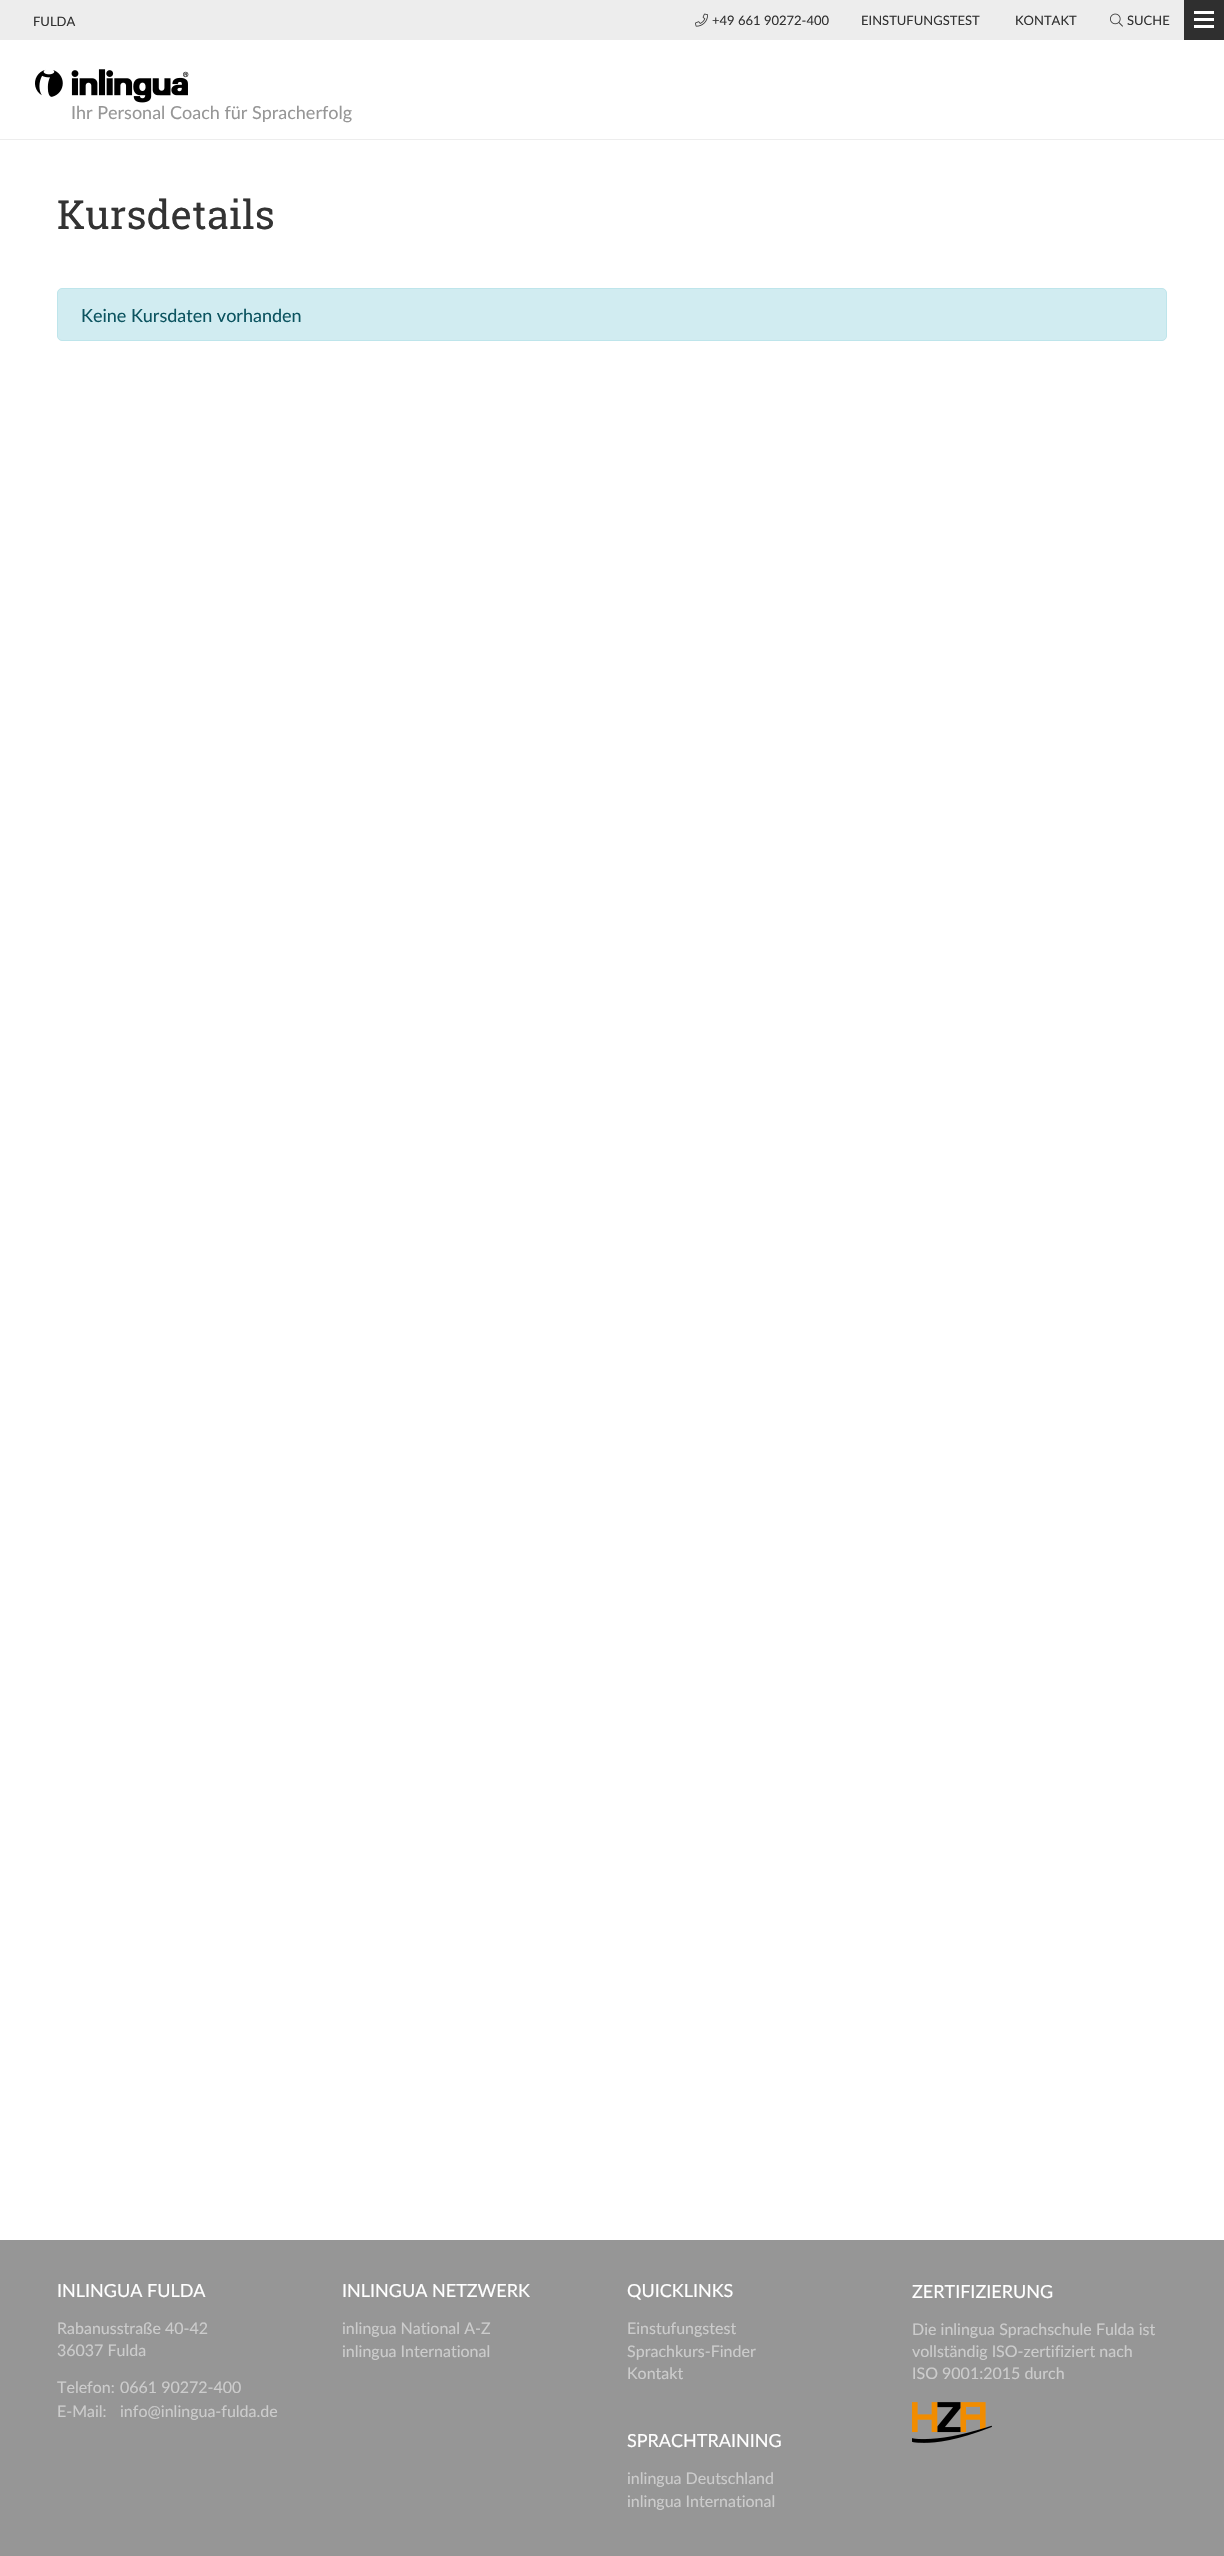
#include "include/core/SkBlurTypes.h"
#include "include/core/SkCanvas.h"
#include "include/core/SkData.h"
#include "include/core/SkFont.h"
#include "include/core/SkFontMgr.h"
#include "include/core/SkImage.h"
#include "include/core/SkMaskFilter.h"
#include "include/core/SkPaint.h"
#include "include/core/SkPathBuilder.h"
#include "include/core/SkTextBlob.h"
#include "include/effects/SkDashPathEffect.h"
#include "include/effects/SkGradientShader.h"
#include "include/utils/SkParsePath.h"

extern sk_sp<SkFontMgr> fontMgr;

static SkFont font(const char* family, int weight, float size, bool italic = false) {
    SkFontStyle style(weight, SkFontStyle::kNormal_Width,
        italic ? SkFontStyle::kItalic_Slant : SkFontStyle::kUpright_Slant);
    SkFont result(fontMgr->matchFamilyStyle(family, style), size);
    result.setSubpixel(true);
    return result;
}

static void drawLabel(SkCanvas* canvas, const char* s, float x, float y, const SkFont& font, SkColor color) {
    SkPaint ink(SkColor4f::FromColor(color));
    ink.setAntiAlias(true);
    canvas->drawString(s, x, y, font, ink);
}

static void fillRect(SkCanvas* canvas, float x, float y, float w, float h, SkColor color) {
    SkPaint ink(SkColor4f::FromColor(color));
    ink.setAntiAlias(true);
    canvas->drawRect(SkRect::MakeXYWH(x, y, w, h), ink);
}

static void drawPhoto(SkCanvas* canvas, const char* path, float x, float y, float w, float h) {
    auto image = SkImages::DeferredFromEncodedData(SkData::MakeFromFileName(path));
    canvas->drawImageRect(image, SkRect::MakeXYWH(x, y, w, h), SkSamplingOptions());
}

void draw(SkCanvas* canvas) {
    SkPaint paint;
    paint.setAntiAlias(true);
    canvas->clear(0xFFFFFFFF);
    fillRect(canvas, 0, 0, 1184, 40, 0xFFEDEDED);
    SkFont font1 = font("Lato", 400, 13);
    drawLabel(canvas, "FULDA", 33, 26, font1, 0xFF333333);
    drawPhoto(canvas, "assets/img1.png", 695, 13, 13, 14);
    drawLabel(canvas, "+49 661 90272-400", 712, 25, font1, 0xFF333333);
    drawLabel(canvas, "EINSTUFUNGSTEST", 861, 25, font1, 0xFF333333);
    drawLabel(canvas, "KONTAKT", 1015, 25, font1, 0xFF333333);
    drawPhoto(canvas, "assets/img2.png", 1110, 13, 13, 14);
    drawLabel(canvas, "SUCHE", 1127, 25, font1, 0xFF333333);
    fillRect(canvas, 1184, 0, 40, 40, 0xFF2F2F2F);
    fillRect(canvas, 1194, 18, 20, 3, 0xFFFFFFFF);
    fillRect(canvas, 1194, 11, 20, 3, 0xFFFFFFFF);
    fillRect(canvas, 1194, 25, 20, 3, 0xFFFFFFFF);
    fillRect(canvas, 0, 139, 1224, 1, 0xFFEDEDED);
    drawPhoto(canvas, "assets/img3.png", 35, 69, 154, 34);
    SkFont font2 = font("Lato", 400, 18);
    drawLabel(canvas, "Ihr Personal Coach für Spracherfolg", 71, 119, font2, 0xFF969696);
    SkFont font3 = font("Roboto Slab", 400, 40);
    drawLabel(canvas, "Kursdetails", 57, 229, font3, 0xFF333333);
    paint.setColor(0xFFD1ECF1);
    canvas->drawRoundRect(SkRect::MakeXYWH(57.5f, 288.5f, 1109, 52), 4.5f, 4.5f, paint);
    paint.setStroke(true);
    paint.setStrokeWidth(1);
    paint.setColor(0xFFBEE5EB);
    canvas->drawRoundRect(SkRect::MakeXYWH(57.5f, 288.5f, 1109, 52), 4.5f, 4.5f, paint);
    drawLabel(canvas, "Keine Kursdaten vorhanden", 81, 322, font2, 0xFF0C5460);
    fillRect(canvas, 0, 2240, 1224, 316, 0xFF969696);
    drawLabel(canvas, "INLINGUA FULDA", 57, 2297, font2, 0xFFFFFFFF);
    SkFont font4 = font("Lato", 400, 16);
    drawLabel(canvas, "Rabanusstraße 40-42", 57, 2334, font4, 0xFFCCCCCC);
    drawLabel(canvas, "36037 Fulda", 57, 2356, font4, 0xFFCCCCCC);
    drawLabel(canvas, "Telefon:", 57, 2393, font4, 0xFFCCCCCC);
    drawLabel(canvas, "0661 90272-400", 120, 2393, font4, 0xFFCCCCCC);
    drawLabel(canvas, "E-Mail:", 57, 2417, font4, 0xFFCCCCCC);
    drawLabel(canvas, "info@inlingua-fulda.de", 120, 2417, font4, 0xFFCCCCCC);
    drawLabel(canvas, "INLINGUA NETZWERK", 342, 2297, font2, 0xFFFFFFFF);
    drawLabel(canvas, "inlingua National A-Z", 342, 2334, font4, 0xFFCCCCCC);
    drawLabel(canvas, "inlingua International", 342, 2357, font4, 0xFFCCCCCC);
    drawLabel(canvas, "QUICKLINKS", 627, 2297, font2, 0xFFFFFFFF);
    drawLabel(canvas, "Einstufungstest", 627, 2334, font4, 0xFFCCCCCC);
    drawLabel(canvas, "Sprachkurs-Finder", 627, 2357, font4, 0xFFCCCCCC);
    drawLabel(canvas, "Kontakt", 627, 2379, font4, 0xFFCCCCCC);
    drawLabel(canvas, "SPRACHTRAINING", 627, 2447, font2, 0xFFFFFFFF);
    drawLabel(canvas, "inlingua Deutschland", 627, 2484, font4, 0xFFCCCCCC);
    drawLabel(canvas, "inlingua International", 627, 2507, font4, 0xFFCCCCCC);
    drawLabel(canvas, "ZERTIFIZIERUNG", 912, 2298, font2, 0xFFFFFFFF);
    drawLabel(canvas, "Die inlingua Sprachschule Fulda ist", 912, 2335, font4, 0xFFCCCCCC);
    drawLabel(canvas, "vollständig ISO-zertifiziert nach", 912, 2357, font4, 0xFFCCCCCC);
    drawLabel(canvas, "ISO 9001:2015 durch", 912, 2379, font4, 0xFFCCCCCC);
    drawPhoto(canvas, "assets/img4.png", 912, 2402, 80, 41);
}
